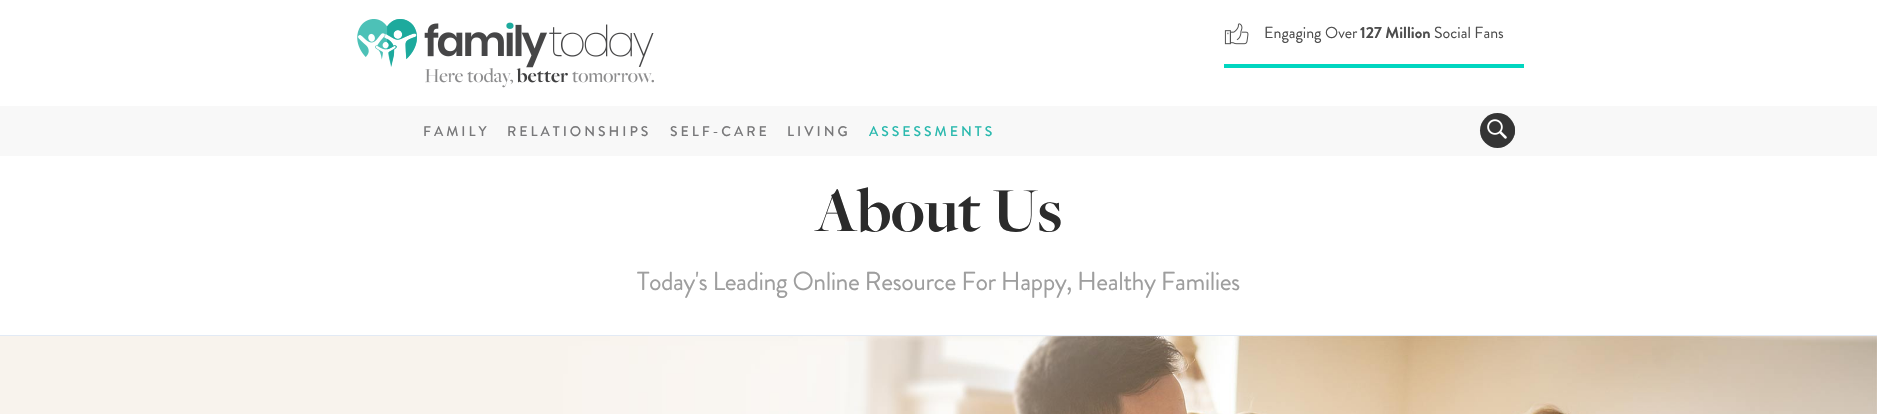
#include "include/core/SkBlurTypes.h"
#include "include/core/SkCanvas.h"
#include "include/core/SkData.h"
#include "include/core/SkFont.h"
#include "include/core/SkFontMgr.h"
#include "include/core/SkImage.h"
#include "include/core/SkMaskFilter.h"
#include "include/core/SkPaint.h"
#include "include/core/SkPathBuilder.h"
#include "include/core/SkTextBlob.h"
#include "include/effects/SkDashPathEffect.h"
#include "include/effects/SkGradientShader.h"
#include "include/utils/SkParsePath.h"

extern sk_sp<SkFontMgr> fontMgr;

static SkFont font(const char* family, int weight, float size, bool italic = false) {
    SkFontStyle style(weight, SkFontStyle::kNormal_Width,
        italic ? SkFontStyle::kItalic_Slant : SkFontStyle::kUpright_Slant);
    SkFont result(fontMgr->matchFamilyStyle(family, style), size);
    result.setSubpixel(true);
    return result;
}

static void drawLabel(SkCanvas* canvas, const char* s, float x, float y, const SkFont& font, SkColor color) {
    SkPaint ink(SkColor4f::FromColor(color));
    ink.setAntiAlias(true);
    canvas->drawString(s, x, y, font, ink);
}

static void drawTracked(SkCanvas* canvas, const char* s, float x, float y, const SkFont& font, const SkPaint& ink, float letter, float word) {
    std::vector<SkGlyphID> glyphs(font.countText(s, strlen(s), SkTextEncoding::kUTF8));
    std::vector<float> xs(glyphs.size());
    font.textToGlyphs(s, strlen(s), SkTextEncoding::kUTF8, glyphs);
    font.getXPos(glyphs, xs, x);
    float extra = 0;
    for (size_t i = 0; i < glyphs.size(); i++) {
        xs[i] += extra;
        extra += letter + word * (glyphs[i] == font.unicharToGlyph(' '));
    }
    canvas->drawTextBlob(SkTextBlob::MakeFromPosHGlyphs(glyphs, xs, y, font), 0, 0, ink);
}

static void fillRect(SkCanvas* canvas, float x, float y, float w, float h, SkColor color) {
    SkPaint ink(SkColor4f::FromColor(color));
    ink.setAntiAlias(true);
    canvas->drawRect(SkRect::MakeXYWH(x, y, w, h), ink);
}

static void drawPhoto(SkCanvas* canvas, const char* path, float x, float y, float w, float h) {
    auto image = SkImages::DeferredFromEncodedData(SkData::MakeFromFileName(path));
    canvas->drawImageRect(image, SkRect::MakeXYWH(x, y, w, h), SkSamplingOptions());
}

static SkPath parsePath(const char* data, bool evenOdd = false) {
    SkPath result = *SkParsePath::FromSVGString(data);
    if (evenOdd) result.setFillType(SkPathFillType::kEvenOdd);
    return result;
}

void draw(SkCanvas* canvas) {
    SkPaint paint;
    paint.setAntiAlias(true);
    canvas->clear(0xFFFFFFFF);
    drawPhoto(canvas, "assets/img1.png", 357, 19, 297, 69);
    fillRect(canvas, 1224, 64, 300, 4, 0xFF01D6C0);
    drawPhoto(canvas, "assets/img2.png", 1224, 23, 25, 22);
    SkFont font1 = font("Brandon Grotesque", 400, 16);
    drawLabel(canvas, "Engaging Over", 1264, 38, font1, 0xFF4D4D4D);
    SkFont font2 = font("Brandon Grotesque", 700, 16);
    drawLabel(canvas, "127 Million", 1360, 38, font2, 0xFF4D4D4D);
    drawLabel(canvas, "Social Fans", 1434, 38, font1, 0xFF4D4D4D);
    fillRect(canvas, 0, 106, 1877, 50, 0xFFF8F8F8);
    SkFont font3 = font("Brandon Grotesque", 500, 14);
    paint.setColor(0xFF78787A);
    drawTracked(canvas, "FAMILY", 423, 136, font3, paint, 3, 0);
    drawTracked(canvas, "RELATIONSHIPS", 507, 136, font3, paint, 3, 0);
    drawTracked(canvas, "SELF-CARE", 670, 136, font3, paint, 3, 0);
    drawTracked(canvas, "LIVING", 787, 136, font3, paint, 3, 0);
    paint.setColor(0xFF2AB9AE);
    drawTracked(canvas, "ASSESSMENTS", 869, 136, font3, paint, 3, 0);
    paint.setColor(0xFF343434);
    canvas->drawCircle(1497.5f, 130.5f, 17.5f, paint);
    drawPhoto(canvas, "assets/img3.png", 1487, 119, 20, 20);
    canvas->save();
    canvas->clipPath(parsePath("M1497.5 113C1507 113 1515 121 1515 130.5C1515 140 1507 148 1497.5 148C1488 148 1480 140 1480 130.5C1480 121 1488 113 1497.5 113Z"), true);
    fillRect(canvas, 1514, 125, 1, 11, 0xFF343434);
    canvas->restore();
    SkFont font4 = font("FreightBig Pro", 700, 65);
    drawLabel(canvas, "About Us", 815, 231, font4, 0xFF2B2B2B);
    SkFont font5 = font("Brandon Grotesque", 400, 26);
    paint.setColor(0xFF9E9E9E);
    drawTracked(canvas, "Today's Leading Online Resource For Happy, Healthy Families", 637, 290, font5, paint, -0.52f, 0);
    fillRect(canvas, 0, 335, 1877, 1, 0xFFE2EAF5);
    drawPhoto(canvas, "assets/img4.png", 0, 336, 1877, 78);
}
